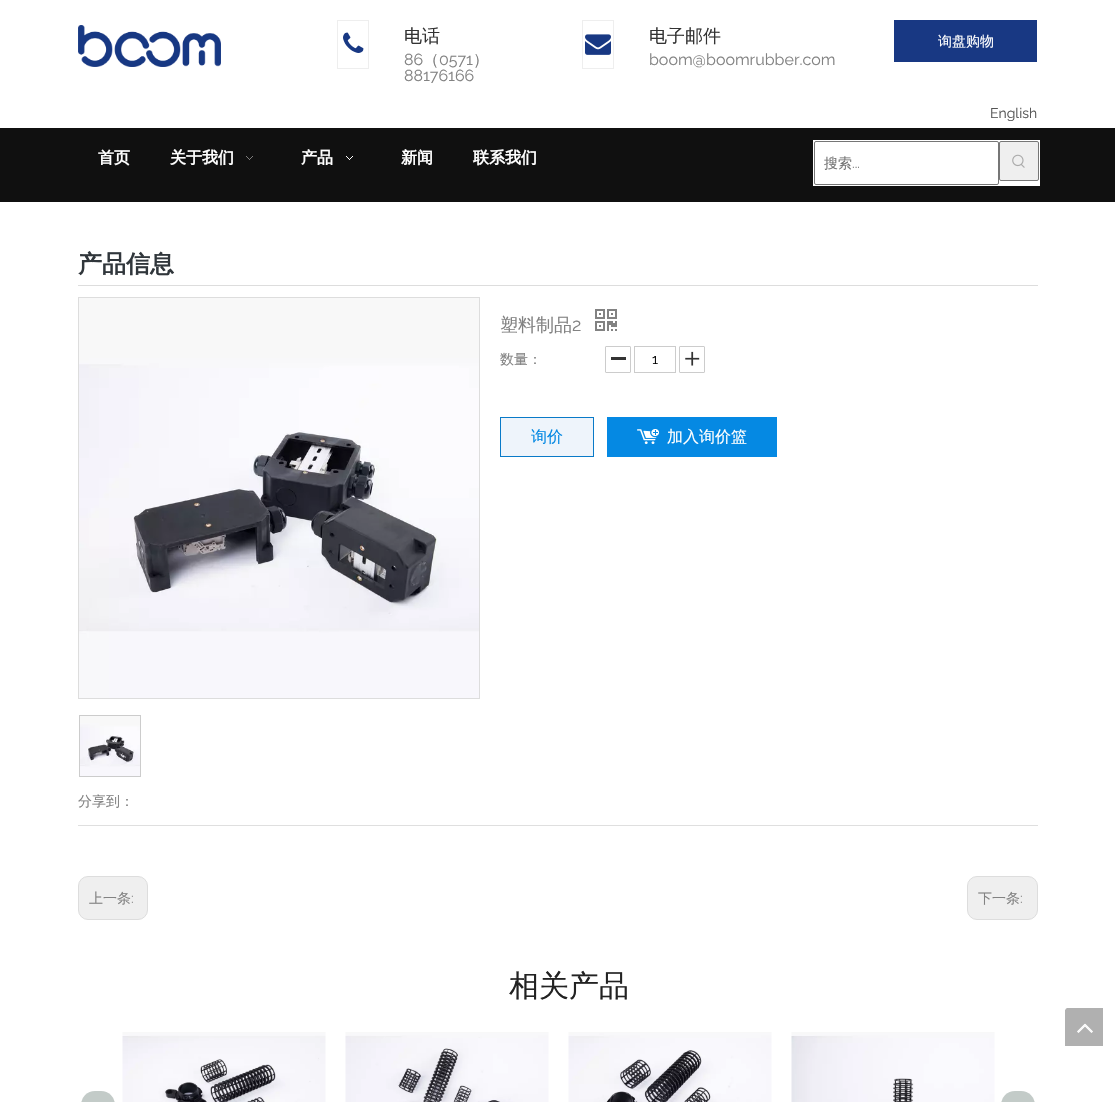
#include "include/core/SkBlurTypes.h"
#include "include/core/SkCanvas.h"
#include "include/core/SkData.h"
#include "include/core/SkFont.h"
#include "include/core/SkFontMgr.h"
#include "include/core/SkImage.h"
#include "include/core/SkMaskFilter.h"
#include "include/core/SkPaint.h"
#include "include/core/SkPathBuilder.h"
#include "include/core/SkTextBlob.h"
#include "include/effects/SkDashPathEffect.h"
#include "include/effects/SkGradientShader.h"
#include "include/utils/SkParsePath.h"

extern sk_sp<SkFontMgr> fontMgr;

static SkFont font(const char* family, int weight, float size, bool italic = false) {
    SkFontStyle style(weight, SkFontStyle::kNormal_Width,
        italic ? SkFontStyle::kItalic_Slant : SkFontStyle::kUpright_Slant);
    SkFont result(fontMgr->matchFamilyStyle(family, style), size);
    result.setSubpixel(true);
    return result;
}

static void drawLabel(SkCanvas* canvas, const char* s, float x, float y, const SkFont& font, SkColor color) {
    SkPaint ink(SkColor4f::FromColor(color));
    ink.setAntiAlias(true);
    canvas->drawString(s, x, y, font, ink);
}

static void fillRect(SkCanvas* canvas, float x, float y, float w, float h, SkColor color) {
    SkPaint ink(SkColor4f::FromColor(color));
    ink.setAntiAlias(true);
    canvas->drawRect(SkRect::MakeXYWH(x, y, w, h), ink);
}

static void fillRRect(SkCanvas* canvas, float x, float y, float w, float h, float radius, SkColor color) {
    SkPaint ink(SkColor4f::FromColor(color));
    ink.setAntiAlias(true);
    canvas->drawRoundRect(SkRect::MakeXYWH(x, y, w, h), radius, radius, ink);
}

static void drawPhoto(SkCanvas* canvas, const char* path, float x, float y, float w, float h) {
    auto image = SkImages::DeferredFromEncodedData(SkData::MakeFromFileName(path));
    canvas->drawImageRect(image, SkRect::MakeXYWH(x, y, w, h), SkSamplingOptions());
}

void draw(SkCanvas* canvas) {
    SkPaint paint;
    paint.setAntiAlias(true);
    canvas->clear(0xFFFFFFFF);
    drawPhoto(canvas, "assets/img1.png", 78, 25, 143, 42);
    paint.setStroke(true);
    paint.setStrokeWidth(1);
    paint.setColor(0xFFEEEEEE);
    canvas->drawRect(SkRect::MakeXYWH(337.5f, 20.5f, 31, 48), paint);
    drawPhoto(canvas, "assets/img2.png", 343, 32, 21, 21);
    SkFont font1 = font("WenQuanYi Zen Hei", 500, 18);
    drawLabel(canvas, "电话", 404, 42, font1, 0xFF333333);
    SkFont font2 = font("Raleway", 400, 16);
    drawLabel(canvas, "86", 404, 65, font2, 0xFF828282);
    SkFont font3 = font("WenQuanYi Zen Hei", 500, 16);
    drawLabel(canvas, "（", 423, 65, font3, 0xFF828282);
    drawLabel(canvas, "0571", 439, 65, font2, 0xFF828282);
    drawLabel(canvas, "）", 473, 65, font3, 0xFF828282);
    drawLabel(canvas, "88176166", 404, 81, font2, 0xFF828282);
    canvas->drawRect(SkRect::MakeXYWH(582.5f, 20.5f, 31, 48), paint);
    drawPhoto(canvas, "assets/img3.png", 585, 34, 26, 21);
    drawLabel(canvas, "电子邮件", 649, 42, font1, 0xFF333333);
    drawLabel(canvas, "boom@boomrubber.com", 649, 65, font2, 0xFF828282);
    fillRect(canvas, 894, 20, 143, 42, 0xFF183883);
    SkFont font4 = font("WenQuanYi Zen Hei", 500, 14);
    drawLabel(canvas, "询盘购物", 938, 46, font4, 0xFFFFFFFF);
    SkFont font5 = font("Raleway", 400, 14);
    drawLabel(canvas, "English", 990, 118, font5, 0xFF545454);
    fillRect(canvas, 0, 128, 1115, 74, 0xFF101010);
    SkFont font6 = font("WenQuanYi Zen Hei", 700, 16);
    drawLabel(canvas, "首页", 98, 163, font6, 0xFFFFFFFF);
    drawLabel(canvas, "关于我们", 170, 163, font6, 0xFFFFFFFF);
    drawPhoto(canvas, "assets/img4.png", 246, 156, 7, 4);
    drawLabel(canvas, "产品", 301, 163, font6, 0xFFFFFFFF);
    drawPhoto(canvas, "assets/img5.png", 346, 156, 7, 4);
    drawLabel(canvas, "新闻", 401, 163, font6, 0xFFFFFFFF);
    drawLabel(canvas, "联系我们", 473, 163, font6, 0xFFFFFFFF);
    fillRect(canvas, 813, 140, 227, 46, 0xFFFFFFFF);
    paint.setColor(0xFF767676);
    canvas->drawRoundRect(SkRect::MakeXYWH(814.5f, 141.5f, 184, 43), 1.5f, 1.5f, paint);
    drawLabel(canvas, "搜索", 824, 168, font4, 0xFF757575);
    drawLabel(canvas, "...", 852, 168, font5, 0xFF757575);
    paint.setStroke(false);
    paint.setColor(0xFFEFEFEF);
    canvas->drawRoundRect(SkRect::MakeXYWH(999.5f, 141.5f, 39, 39), 1.5f, 1.5f, paint);
    paint.setStroke(true);
    paint.setColor(0xFF767676);
    canvas->drawRoundRect(SkRect::MakeXYWH(999.5f, 141.5f, 39, 39), 1.5f, 1.5f, paint);
    drawPhoto(canvas, "assets/img6.png", 1012, 154, 13, 14);
    fillRect(canvas, 78, 285, 960, 1, 0xFFDDDDDD);
    SkFont font7 = font("WenQuanYi Zen Hei", 700, 24);
    drawLabel(canvas, "产品信息", 78, 272, font7, 0xFF30363B);
    drawLabel(canvas, "塑料制品", 500, 331, font1, 0xFF828282);
    SkFont font8 = font("Raleway", 400, 18);
    drawLabel(canvas, "2", 572, 331, font8, 0xFF828282);
    drawPhoto(canvas, "assets/img7.png", 595, 309, 22, 22);
    drawLabel(canvas, "数量：", 500, 364, font4, 0xFF828282);
    fillRect(canvas, 611, 357, 15, 3, 0xFF333333);
    paint.setColor(0xFFCCCCCC);
    canvas->drawRoundRect(SkRect::MakeXYWH(605.5f, 346.5f, 25, 26), 0.5f, 0.5f, paint);
    canvas->drawRect(SkRect::MakeXYWH(634.5f, 346.5f, 41, 26), paint);
    drawLabel(canvas, "1", 652, 364, font5, 0xFF000000);
    drawPhoto(canvas, "assets/img8.png", 685, 351, 15, 15);
    canvas->drawRoundRect(SkRect::MakeXYWH(679.5f, 346.5f, 25, 26), 0.5f, 0.5f, paint);
    paint.setStroke(false);
    paint.setColor(0xFFEEF4FB);
    canvas->drawRect(SkRect::MakeXYWH(500.5f, 417.5f, 93, 39), paint);
    paint.setStroke(true);
    paint.setColor(0xFF097AC8);
    canvas->drawRect(SkRect::MakeXYWH(500.5f, 417.5f, 93, 39), paint);
    drawLabel(canvas, "询价", 531, 442, font3, 0xFF0589E3);
    fillRect(canvas, 607, 417, 170, 40, 0xFF0589E3);
    drawPhoto(canvas, "assets/img9.png", 637, 429, 22, 15);
    drawLabel(canvas, "加入询价篮", 667, 442, font3, 0xFFFFFFFF);
    paint.setColor(0xFFDDDDDD);
    canvas->drawRect(SkRect::MakeXYWH(78.5f, 297.5f, 401, 401), paint);
    drawPhoto(canvas, "assets/img10.png", 79, 298, 400, 400);
    paint.setColor(0xFFCCCCCC);
    canvas->drawRect(SkRect::MakeXYWH(79.5f, 715.5f, 61, 61), paint);
    drawPhoto(canvas, "assets/img11.png", 80, 716, 60, 60);
    drawLabel(canvas, "分享到：", 78, 806, font4, 0xFF828282);
    fillRect(canvas, 78, 825, 960, 1, 0xFFDFDFDF);
    paint.setStroke(false);
    paint.setColor(0xFFEFEFEF);
    canvas->drawRoundRect(SkRect::MakeXYWH(78.5f, 876.5f, 69, 43), 9.5f, 9.5f, paint);
    paint.setStroke(true);
    paint.setColor(0xFFDDDDDD);
    canvas->drawRoundRect(SkRect::MakeXYWH(78.5f, 876.5f, 69, 43), 9.5f, 9.5f, paint);
    drawLabel(canvas, "上一条", 89, 903, font4, 0xFF828282);
    drawLabel(canvas, ":", 131, 903, font5, 0xFF828282);
    paint.setStroke(false);
    paint.setColor(0xFFEFEFEF);
    canvas->drawRoundRect(SkRect::MakeXYWH(967.5f, 876.5f, 70, 43), 9.5f, 9.5f, paint);
    paint.setStroke(true);
    paint.setColor(0xFFDDDDDD);
    canvas->drawRoundRect(SkRect::MakeXYWH(967.5f, 876.5f, 70, 43), 9.5f, 9.5f, paint);
    drawLabel(canvas, "下一条", 978, 903, font4, 0xFF828282);
    drawLabel(canvas, ":", 1020, 903, font5, 0xFF828282);
    SkFont font9 = font("WenQuanYi Zen Hei", 500, 30);
    drawLabel(canvas, "相关产品", 509, 996, font9, 0xFF222222);
    drawPhoto(canvas, "assets/img12.png", 122, 1032, 204, 70);
    drawPhoto(canvas, "assets/img13.png", 345, 1032, 204, 70);
    drawPhoto(canvas, "assets/img14.png", 568, 1032, 204, 70);
    drawPhoto(canvas, "assets/img15.png", 791, 1032, 204, 70);
    fillRRect(canvas, 81, 1091, 34, 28, 17, 0xFFC3CBC8);
    fillRRect(canvas, 1001, 1091, 34, 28, 17, 0xFFC3CBC8);
    drawPhoto(canvas, "assets/img16.png", 1065, 1008, 38, 38);
}
